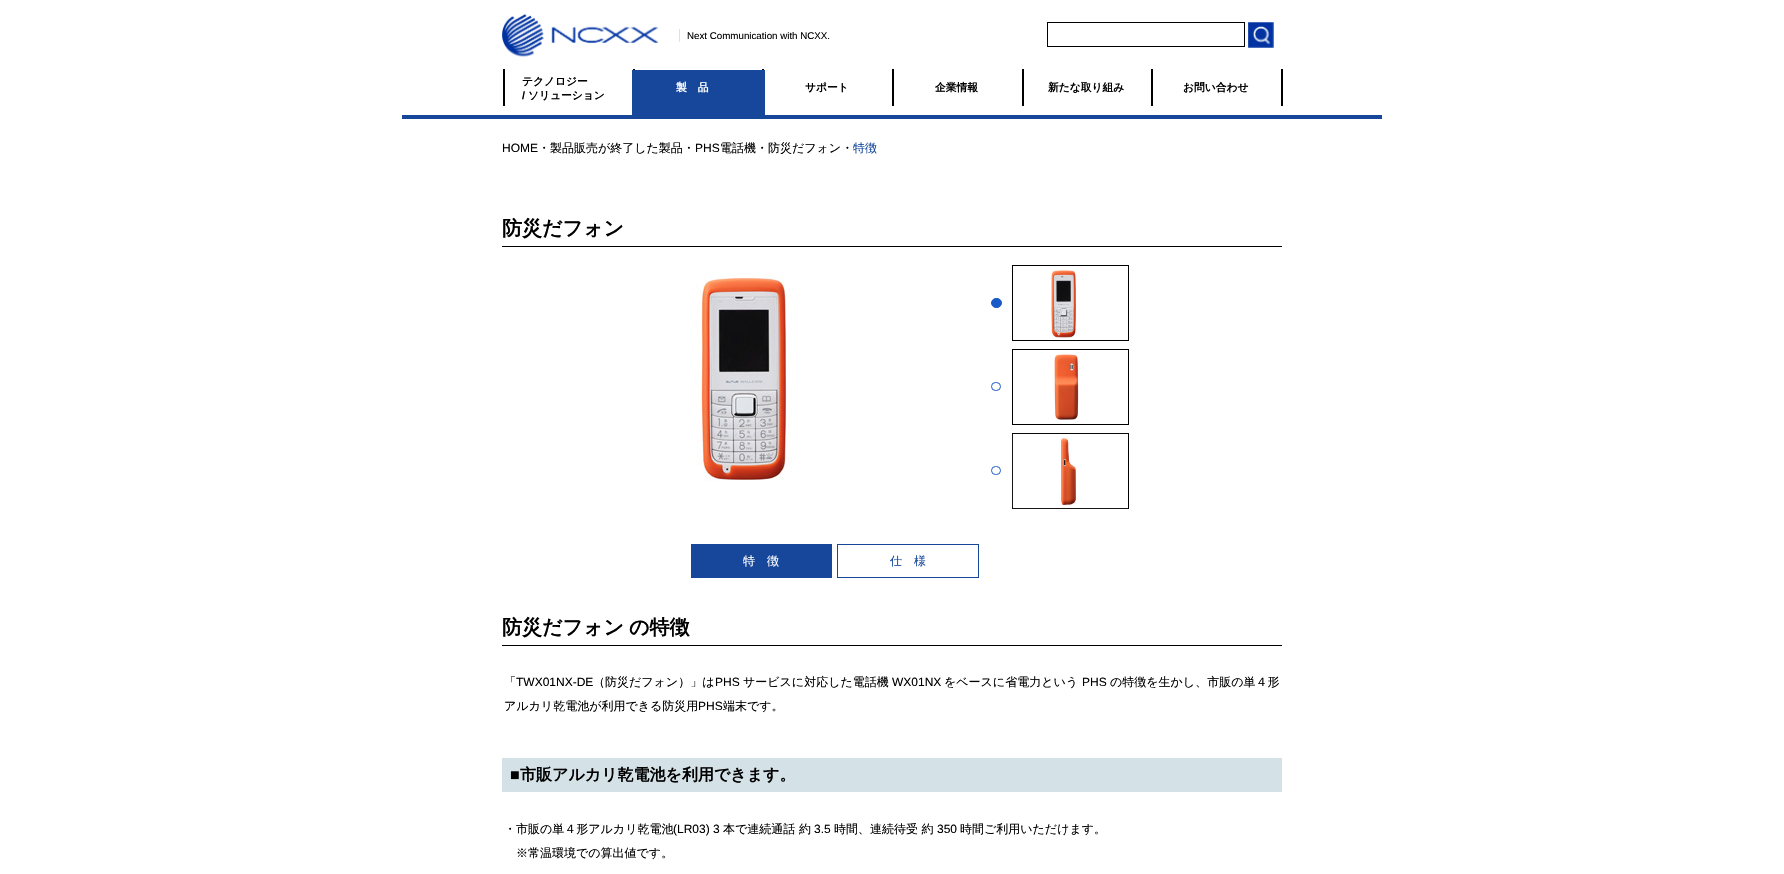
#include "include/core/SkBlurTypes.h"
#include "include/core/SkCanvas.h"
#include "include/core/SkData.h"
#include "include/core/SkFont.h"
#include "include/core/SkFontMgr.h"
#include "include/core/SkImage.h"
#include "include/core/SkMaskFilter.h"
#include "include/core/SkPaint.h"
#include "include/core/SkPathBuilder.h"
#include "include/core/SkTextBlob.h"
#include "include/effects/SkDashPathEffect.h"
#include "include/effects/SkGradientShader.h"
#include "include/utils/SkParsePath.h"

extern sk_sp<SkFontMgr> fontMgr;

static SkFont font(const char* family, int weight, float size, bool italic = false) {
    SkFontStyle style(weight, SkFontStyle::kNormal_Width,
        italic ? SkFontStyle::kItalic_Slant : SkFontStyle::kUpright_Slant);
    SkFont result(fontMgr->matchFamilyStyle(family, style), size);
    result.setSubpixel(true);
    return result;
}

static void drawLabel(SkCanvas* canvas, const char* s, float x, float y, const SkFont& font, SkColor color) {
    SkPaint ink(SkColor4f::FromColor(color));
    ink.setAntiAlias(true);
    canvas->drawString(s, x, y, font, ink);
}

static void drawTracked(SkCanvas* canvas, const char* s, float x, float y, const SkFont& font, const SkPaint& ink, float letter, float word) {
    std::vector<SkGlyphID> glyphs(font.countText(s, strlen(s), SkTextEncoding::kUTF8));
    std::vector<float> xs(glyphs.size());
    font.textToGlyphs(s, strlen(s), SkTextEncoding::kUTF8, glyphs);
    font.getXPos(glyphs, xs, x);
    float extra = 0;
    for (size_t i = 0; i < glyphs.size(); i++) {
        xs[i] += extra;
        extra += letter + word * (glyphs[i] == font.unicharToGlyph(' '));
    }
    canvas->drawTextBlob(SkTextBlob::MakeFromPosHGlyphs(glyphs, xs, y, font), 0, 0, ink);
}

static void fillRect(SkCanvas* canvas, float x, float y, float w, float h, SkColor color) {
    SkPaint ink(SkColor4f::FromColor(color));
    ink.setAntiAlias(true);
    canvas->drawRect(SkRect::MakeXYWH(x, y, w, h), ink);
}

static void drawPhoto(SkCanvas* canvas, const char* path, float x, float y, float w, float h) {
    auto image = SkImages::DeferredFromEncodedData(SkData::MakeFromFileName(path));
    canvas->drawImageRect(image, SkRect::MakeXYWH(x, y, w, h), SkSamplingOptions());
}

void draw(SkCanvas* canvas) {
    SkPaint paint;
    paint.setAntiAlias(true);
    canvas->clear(0xFFFFFFFF);
    drawPhoto(canvas, "assets/img1.png", 502, 14, 156, 43);
    fillRect(canvas, 679, 29, 1, 13, 0xFFE0E0E0);
    SkFont font1 = font("Liberation Sans", 400, 9.75f);
    drawLabel(canvas, "Next Communication with NCXX.", 687, 39, font1, 0xFF000000);
    paint.setStroke(true);
    paint.setStrokeWidth(1);
    paint.setColor(0xFF000000);
    canvas->drawRect(SkRect::MakeXYWH(1047.5f, 22.5f, 197, 24), paint);
    drawPhoto(canvas, "assets/img2.png", 1248, 22, 26, 26);
    fillRect(canvas, 402, 115, 980, 4, 0xFF16479A);
    fillRect(canvas, 503, 69, 2, 37, 0xFF000000);
    fillRect(canvas, 633, 69, 2, 1, 0xFF000000);
    fillRect(canvas, 762, 69, 2, 1, 0xFF000000);
    fillRect(canvas, 892, 69, 2, 37, 0xFF000000);
    fillRect(canvas, 1022, 69, 2, 37, 0xFF000000);
    fillRect(canvas, 1281, 69, 2, 37, 0xFF000000);
    fillRect(canvas, 1151, 69, 2, 37, 0xFF000000);
    SkFont font2 = font("WenQuanYi Zen Hei", 700, 10.75f);
    drawLabel(canvas, "テクノロジー", 522, 85, font2, 0xFF000000);
    SkFont font3 = font("Liberation Sans", 700, 10.75f);
    drawLabel(canvas, "/", 522, 99, font3, 0xFF000000);
    drawLabel(canvas, "ソリューション", 528, 99, font2, 0xFF000000);
    fillRect(canvas, 632, 70, 133, 45, 0xFF16479A);
    paint.setStroke(false);
    paint.setColor(0xFFFFFFFF);
    drawTracked(canvas, "製品", 676, 91, font2, paint, 11, 0);
    drawLabel(canvas, "サポート", 805, 91, font2, 0xFF000000);
    drawLabel(canvas, "企業情報", 935, 91, font2, 0xFF000000);
    drawLabel(canvas, "新たな取り組み", 1048, 91, font2, 0xFF000000);
    drawLabel(canvas, "お問い合わせ", 1183, 91, font2, 0xFF000000);
    SkFont font4 = font("Liberation Sans", 400, 12);
    drawLabel(canvas, "HOME", 502, 152, font4, 0xFF000000);
    SkFont font5 = font("WenQuanYi Zen Hei", 500, 12);
    drawLabel(canvas, "・製品販売が終了した製品・", 538, 152, font5, 0xFF000000);
    drawLabel(canvas, "PHS", 695, 152, font4, 0xFF000000);
    drawLabel(canvas, "電話機・防災だフォン・", 720, 152, font5, 0xFF000000);
    drawLabel(canvas, "特徴", 853, 152, font5, 0xFF16479A);
    fillRect(canvas, 502, 246, 780, 1, 0xFF000000);
    SkFont font6 = font("WenQuanYi Zen Hei", 700, 20);
    drawLabel(canvas, "防災だフォン", 502, 235, font6, 0xFF000000);
    drawPhoto(canvas, "assets/img3.png", 696, 273, 96, 208);
    paint.setColor(0xFF195AC8);
    canvas->drawRoundRect(SkRect::MakeXYWH(991.5f, 298.5f, 10, 9), 4.5f, 4.5f, paint);
    paint.setStroke(true);
    canvas->drawRoundRect(SkRect::MakeXYWH(991.5f, 298.5f, 10, 9), 4.5f, 4.5f, paint);
    paint.setColor(0xFF000000);
    canvas->drawRect(SkRect::MakeXYWH(1012.5f, 265.5f, 116, 75), paint);
    drawPhoto(canvas, "assets/img4.png", 1051, 270, 26, 68);
    paint.setColor(0xFF195AC8);
    canvas->drawRoundRect(SkRect::MakeXYWH(991.5f, 382.5f, 9, 8), 4, 4, paint);
    paint.setColor(0xFF000000);
    canvas->drawRect(SkRect::MakeXYWH(1012.5f, 349.5f, 116, 75), paint);
    drawPhoto(canvas, "assets/img5.png", 1054, 354, 25, 66);
    paint.setColor(0xFF195AC8);
    canvas->drawRoundRect(SkRect::MakeXYWH(991.5f, 466.5f, 9, 8), 4, 4, paint);
    paint.setColor(0xFF000000);
    canvas->drawRect(SkRect::MakeXYWH(1012.5f, 433.5f, 116, 75), paint);
    drawPhoto(canvas, "assets/img6.png", 1012, 433, 116, 76);
    paint.setColor(0xFF16479A);
    canvas->drawRect(SkRect::MakeXYWH(691.5f, 544.5f, 140, 33), paint);
    fillRect(canvas, 692, 545, 139, 32, 0xFF16479A);
    drawLabel(canvas, "特　徴", 743, 565, font5, 0xFFFFFFFF);
    canvas->drawRect(SkRect::MakeXYWH(837.5f, 544.5f, 141, 33), paint);
    drawLabel(canvas, "仕　様", 890, 565, font5, 0xFF16479A);
    fillRect(canvas, 502, 645, 780, 1, 0xFF000000);
    drawLabel(canvas, "防災だフォン", 502, 634, font6, 0xFF000000);
    drawLabel(canvas, "の特徴", 629, 634, font6, 0xFF000000);
    drawLabel(canvas, "「", 504, 686, font5, 0xFF000000);
    drawLabel(canvas, "TWX01NX-DE", 516, 686, font4, 0xFF000000);
    drawLabel(canvas, "（防災だフォン）」は", 593, 686, font5, 0xFF000000);
    drawLabel(canvas, "PHS", 715, 686, font4, 0xFF000000);
    drawLabel(canvas, "サービスに対応した電話機", 743, 686, font5, 0xFF000000);
    drawLabel(canvas, "WX01NX", 892, 686, font4, 0xFF000000);
    drawLabel(canvas, "をベースに省電力という", 944, 686, font5, 0xFF000000);
    drawLabel(canvas, "PHS", 1082, 686, font4, 0xFF000000);
    drawLabel(canvas, "の特徴を生かし、市販の単４形", 1110, 686, font5, 0xFF000000);
    drawLabel(canvas, "アルカリ乾電池が利用できる防災用", 504, 710, font5, 0xFF000000);
    drawLabel(canvas, "PHS", 698, 710, font4, 0xFF000000);
    drawLabel(canvas, "端末です。", 723, 710, font5, 0xFF000000);
    fillRect(canvas, 502, 758, 780, 34, 0xFFD4E1E6);
    SkFont font7 = font("Liberation Sans", 700, 16);
    drawLabel(canvas, "■", 510, 780, font7, 0xFF000000);
    SkFont font8 = font("WenQuanYi Zen Hei", 700, 16);
    drawLabel(canvas, "市販アルカリ乾電池を利用できます。", 520, 780, font8, 0xFF000000);
    drawLabel(canvas, "・市販の単４形アルカリ乾電池", 504, 833, font5, 0xFF000000);
    drawLabel(canvas, "(LR03) 3", 673, 833, font4, 0xFF000000);
    drawLabel(canvas, "本で連続通話 約", 723, 833, font5, 0xFF000000);
    drawLabel(canvas, "3.5", 814, 833, font4, 0xFF000000);
    drawLabel(canvas, "時間、連続待受 約", 834, 833, font5, 0xFF000000);
    drawLabel(canvas, "350", 937, 833, font4, 0xFF000000);
    drawLabel(canvas, "時間ご利用いただけます。", 960, 833, font5, 0xFF000000);
    drawLabel(canvas, "※常温環境での算出値です。", 516, 857, font5, 0xFF000000);
}
